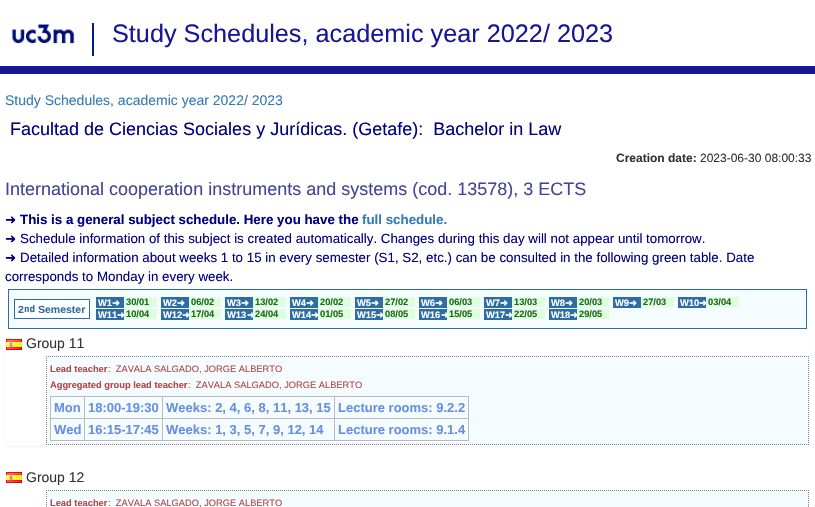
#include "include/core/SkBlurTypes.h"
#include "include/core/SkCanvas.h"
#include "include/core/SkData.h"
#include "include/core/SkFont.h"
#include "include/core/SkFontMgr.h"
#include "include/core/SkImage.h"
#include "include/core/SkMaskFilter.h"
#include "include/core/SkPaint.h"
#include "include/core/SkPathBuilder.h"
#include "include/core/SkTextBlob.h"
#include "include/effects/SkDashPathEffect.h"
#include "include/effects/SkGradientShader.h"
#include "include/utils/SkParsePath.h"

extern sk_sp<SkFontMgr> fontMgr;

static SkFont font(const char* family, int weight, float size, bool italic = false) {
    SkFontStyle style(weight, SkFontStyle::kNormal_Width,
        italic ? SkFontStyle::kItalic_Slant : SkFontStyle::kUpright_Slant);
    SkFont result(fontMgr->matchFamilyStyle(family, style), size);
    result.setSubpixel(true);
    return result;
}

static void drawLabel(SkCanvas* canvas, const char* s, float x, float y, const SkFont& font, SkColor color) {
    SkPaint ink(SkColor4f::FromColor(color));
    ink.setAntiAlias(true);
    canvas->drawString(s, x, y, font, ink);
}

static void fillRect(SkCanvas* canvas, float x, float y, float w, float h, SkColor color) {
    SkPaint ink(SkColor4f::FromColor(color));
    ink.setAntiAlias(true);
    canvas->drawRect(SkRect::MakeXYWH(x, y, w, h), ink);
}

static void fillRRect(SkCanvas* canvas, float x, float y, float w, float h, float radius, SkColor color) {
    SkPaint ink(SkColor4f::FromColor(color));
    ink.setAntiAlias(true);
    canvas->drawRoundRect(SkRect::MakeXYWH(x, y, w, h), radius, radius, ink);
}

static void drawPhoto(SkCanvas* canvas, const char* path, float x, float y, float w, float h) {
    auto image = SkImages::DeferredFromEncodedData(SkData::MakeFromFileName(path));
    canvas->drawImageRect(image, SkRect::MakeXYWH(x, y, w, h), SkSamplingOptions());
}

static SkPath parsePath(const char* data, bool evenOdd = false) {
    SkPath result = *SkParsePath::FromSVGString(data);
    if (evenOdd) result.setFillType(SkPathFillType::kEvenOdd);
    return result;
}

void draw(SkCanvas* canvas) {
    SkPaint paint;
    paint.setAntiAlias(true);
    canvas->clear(0xFFFFFFFF);
    fillRect(canvas, 0, 66, 815, 8, 0xFF171796);
    drawPhoto(canvas, "assets/img1.png", 12, 24, 63, 20);
    fillRect(canvas, 92, 23, 2, 33, 0xFF001D85);
    SkFont font1 = font("Liberation Sans", 400, 25.25f);
    drawLabel(canvas, "Study Schedules, academic year 2022/ 2023", 112, 42, font1, 0xFF171796);
    SkFont font2 = font("Liberation Sans", 400, 14);
    drawLabel(canvas, "Study Schedules, academic year 2022/ 2023", 5, 105, font2, 0xFF337AB7);
    SkFont font3 = font("Liberation Sans", 400, 18);
    drawLabel(canvas, "Facultad de Ciencias Sociales y Jurídicas. (Getafe):  Bachelor in Law", 10, 135, font3, 0xFF000080);
    SkFont font4 = font("Liberation Sans", 700, 12);
    drawLabel(canvas, "Creation date:", 616, 162, font4, 0xFF333333);
    SkFont font5 = font("Liberation Sans", 400, 12);
    drawLabel(canvas, "2023-06-30 08:00:33", 700, 162, font5, 0xFF333333);
    drawLabel(canvas, "International cooperation instruments and systems (cod. 13578), 3 ECTS", 5, 195, font3, 0xFF444499);
    SkFont font6 = font("DejaVu Sans", 400, 13.33f);
    drawLabel(canvas, "➜", 5, 224, font6, 0xFF000080);
    SkFont font7 = font("Liberation Sans", 700, 13.33f);
    drawLabel(canvas, "This is a general subject schedule. Here you have the", 20, 224, font7, 0xFF000080);
    drawLabel(canvas, "full schedule.", 362, 224, font7, 0xFF337AB7);
    drawLabel(canvas, "➜", 5, 243, font6, 0xFF000080);
    SkFont font8 = font("Liberation Sans", 400, 13.33f);
    drawLabel(canvas, "Schedule information of this subject is created automatically. Changes during this day will not appear until tomorrow.", 20, 243, font8, 0xFF000080);
    drawLabel(canvas, "➜", 5, 262, font6, 0xFF000080);
    drawLabel(canvas, "Detailed information about weeks 1 to 15 in every semester (S1, S2, etc.) can be consulted in the following green table. Date", 20, 262, font8, 0xFF000080);
    drawLabel(canvas, "corresponds to Monday in every week.", 5, 281, font8, 0xFF000080);
    paint.setColor(0xFFF5FCFF);
    canvas->drawRect(SkRect::MakeXYWH(8.5f, 289.5f, 798, 39), paint);
    paint.setStroke(true);
    paint.setStrokeWidth(1);
    paint.setColor(0xFF2E6DA4);
    canvas->drawRect(SkRect::MakeXYWH(8.5f, 289.5f, 798, 39), paint);
    paint.setStroke(false);
    paint.setColor(0xFFFFFFFF);
    canvas->drawRect(SkRect::MakeXYWH(14.5f, 299.5f, 75, 19), paint);
    paint.setStroke(true);
    paint.setColor(0xFF2E6DA4);
    canvas->drawRect(SkRect::MakeXYWH(14.5f, 299.5f, 75, 19), paint);
    SkFont font9 = font("Liberation Sans", 700, 10.5f);
    drawLabel(canvas, "2", 18, 313, font9, 0xFF2E6DA4);
    SkFont font10 = font("DejaVu Sans Mono", 700, 9.3f);
    drawLabel(canvas, "nd", 24, 312, font10, 0xFF2E6DA4);
    drawLabel(canvas, "Semester", 38, 313, font9, 0xFF2E6DA4);
    fillRect(canvas, 96, 297, 28, 11, 0xFF2E6DA4);
    SkFont font11 = font("Liberation Sans", 700, 9.3f);
    drawLabel(canvas, "W1", 98, 306, font11, 0xFFFFFFFF);
    SkFont font12 = font("DejaVu Sans", 700, 9.3f);
    drawLabel(canvas, "➜", 112, 306, font12, 0xFFFFFFFF);
    fillRect(canvas, 124, 297, 33, 10, 0xFFDDFFDD);
    drawLabel(canvas, "30/01", 126, 305, font11, 0xFF226622);
    fillRect(canvas, 161, 297, 28, 11, 0xFF2E6DA4);
    drawLabel(canvas, "W2", 163, 306, font11, 0xFFFFFFFF);
    drawLabel(canvas, "➜", 177, 306, font12, 0xFFFFFFFF);
    fillRect(canvas, 189, 297, 32, 10, 0xFFDDFFDD);
    drawLabel(canvas, "06/02", 191, 305, font11, 0xFF226622);
    fillRect(canvas, 225, 297, 28, 11, 0xFF2E6DA4);
    drawLabel(canvas, "W3", 227, 306, font11, 0xFFFFFFFF);
    drawLabel(canvas, "➜", 241, 306, font12, 0xFFFFFFFF);
    fillRect(canvas, 253, 297, 33, 10, 0xFFDDFFDD);
    drawLabel(canvas, "13/02", 255, 305, font11, 0xFF226622);
    fillRect(canvas, 290, 297, 28, 11, 0xFF2E6DA4);
    drawLabel(canvas, "W4", 292, 306, font11, 0xFFFFFFFF);
    drawLabel(canvas, "➜", 306, 306, font12, 0xFFFFFFFF);
    fillRect(canvas, 318, 297, 33, 10, 0xFFDDFFDD);
    drawLabel(canvas, "20/02", 320, 305, font11, 0xFF226622);
    fillRect(canvas, 355, 297, 28, 11, 0xFF2E6DA4);
    drawLabel(canvas, "W5", 357, 306, font11, 0xFFFFFFFF);
    drawLabel(canvas, "➜", 371, 306, font12, 0xFFFFFFFF);
    fillRect(canvas, 383, 297, 32, 10, 0xFFDDFFDD);
    drawLabel(canvas, "27/02", 385, 305, font11, 0xFF226622);
    fillRect(canvas, 419, 297, 28, 11, 0xFF2E6DA4);
    drawLabel(canvas, "W6", 421, 306, font11, 0xFFFFFFFF);
    drawLabel(canvas, "➜", 435, 306, font12, 0xFFFFFFFF);
    fillRect(canvas, 447, 297, 33, 10, 0xFFDDFFDD);
    drawLabel(canvas, "06/03", 449, 305, font11, 0xFF226622);
    fillRect(canvas, 484, 297, 28, 11, 0xFF2E6DA4);
    drawLabel(canvas, "W7", 486, 306, font11, 0xFFFFFFFF);
    drawLabel(canvas, "➜", 500, 306, font12, 0xFFFFFFFF);
    fillRect(canvas, 512, 297, 33, 10, 0xFFDDFFDD);
    drawLabel(canvas, "13/03", 514, 305, font11, 0xFF226622);
    fillRect(canvas, 549, 297, 28, 11, 0xFF2E6DA4);
    drawLabel(canvas, "W8", 551, 306, font11, 0xFFFFFFFF);
    drawLabel(canvas, "➜", 565, 306, font12, 0xFFFFFFFF);
    fillRect(canvas, 577, 297, 32, 10, 0xFFDDFFDD);
    drawLabel(canvas, "20/03", 579, 305, font11, 0xFF226622);
    fillRect(canvas, 613, 297, 28, 11, 0xFF2E6DA4);
    drawLabel(canvas, "W9", 615, 306, font11, 0xFFFFFFFF);
    drawLabel(canvas, "➜", 629, 306, font12, 0xFFFFFFFF);
    fillRect(canvas, 641, 297, 33, 10, 0xFFDDFFDD);
    drawLabel(canvas, "27/03", 643, 305, font11, 0xFF226622);
    fillRect(canvas, 678, 297, 28, 11, 0xFF2E6DA4);
    drawLabel(canvas, "W10", 680, 306, font11, 0xFFFFFFFF);
    drawLabel(canvas, "➜", 699, 306, font12, 0xFFFFFFFF);
    fillRect(canvas, 706, 297, 33, 10, 0xFFDDFFDD);
    drawLabel(canvas, "03/04", 708, 305, font11, 0xFF226622);
    fillRect(canvas, 96, 309, 28, 11, 0xFF2E6DA4);
    drawLabel(canvas, "W11", 98, 318, font11, 0xFFFFFFFF);
    drawLabel(canvas, "➜", 117, 318, font12, 0xFFFFFFFF);
    fillRect(canvas, 124, 309, 33, 10, 0xFFDDFFDD);
    drawLabel(canvas, "10/04", 126, 317, font11, 0xFF226622);
    fillRect(canvas, 161, 309, 28, 11, 0xFF2E6DA4);
    drawLabel(canvas, "W12", 163, 318, font11, 0xFFFFFFFF);
    drawLabel(canvas, "➜", 182, 318, font12, 0xFFFFFFFF);
    fillRect(canvas, 189, 309, 32, 10, 0xFFDDFFDD);
    drawLabel(canvas, "17/04", 191, 317, font11, 0xFF226622);
    fillRect(canvas, 225, 309, 28, 11, 0xFF2E6DA4);
    drawLabel(canvas, "W13", 227, 318, font11, 0xFFFFFFFF);
    drawLabel(canvas, "➜", 247, 318, font12, 0xFFFFFFFF);
    fillRect(canvas, 253, 309, 33, 10, 0xFFDDFFDD);
    drawLabel(canvas, "24/04", 255, 317, font11, 0xFF226622);
    fillRect(canvas, 290, 309, 28, 11, 0xFF2E6DA4);
    drawLabel(canvas, "W14", 292, 318, font11, 0xFFFFFFFF);
    drawLabel(canvas, "➜", 311, 318, font12, 0xFFFFFFFF);
    fillRect(canvas, 318, 309, 33, 10, 0xFFDDFFDD);
    drawLabel(canvas, "01/05", 320, 317, font11, 0xFF226622);
    fillRect(canvas, 355, 309, 28, 11, 0xFF2E6DA4);
    drawLabel(canvas, "W15", 357, 318, font11, 0xFFFFFFFF);
    drawLabel(canvas, "➜", 376, 318, font12, 0xFFFFFFFF);
    fillRect(canvas, 383, 309, 32, 10, 0xFFDDFFDD);
    drawLabel(canvas, "08/05", 385, 317, font11, 0xFF226622);
    fillRect(canvas, 419, 309, 28, 11, 0xFF2E6DA4);
    drawLabel(canvas, "W16", 421, 318, font11, 0xFFFFFFFF);
    drawLabel(canvas, "➜", 441, 318, font12, 0xFFFFFFFF);
    fillRect(canvas, 447, 309, 33, 10, 0xFFDDFFDD);
    drawLabel(canvas, "15/05", 449, 317, font11, 0xFF226622);
    fillRect(canvas, 484, 309, 28, 11, 0xFF2E6DA4);
    drawLabel(canvas, "W17", 486, 318, font11, 0xFFFFFFFF);
    drawLabel(canvas, "➜", 505, 318, font12, 0xFFFFFFFF);
    fillRect(canvas, 512, 309, 33, 10, 0xFFDDFFDD);
    drawLabel(canvas, "22/05", 514, 317, font11, 0xFF226622);
    fillRect(canvas, 549, 309, 28, 11, 0xFF2E6DA4);
    drawLabel(canvas, "W18", 551, 318, font11, 0xFFFFFFFF);
    drawLabel(canvas, "➜", 570, 318, font12, 0xFFFFFFFF);
    fillRect(canvas, 577, 309, 32, 10, 0xFFDDFFDD);
    drawLabel(canvas, "29/05", 579, 317, font11, 0xFF226622);
    paint.setStroke(false);
    paint.setColor(0x0D000000);
    paint.setMaskFilter(SkMaskFilter::MakeBlur(kNormal_SkBlurStyle, 1));
    canvas->drawRoundRect(SkRect::MakeXYWH(5, 333, 805, 114), 4, 4, paint);
    paint.setMaskFilter(nullptr);
    fillRRect(canvas, 5, 332, 805, 114, 4, 0xFFFFFFFF);
    drawPhoto(canvas, "assets/img2.png", 6, 339, 16, 11);
    drawLabel(canvas, "Group 11", 26, 348, font2, 0xFF333333);
    fillRect(canvas, 46, 356, 763, 89, 0xFFF5FCFF);
    paint.setStroke(true);
    paint.setColor(0xFF808080);
    paint.setPathEffect(SkDashPathEffect::Make({{1, 1}}, 0));
    canvas->drawPath(parsePath("M46 356.5H809"), paint);
    paint.setPathEffect(nullptr);
    paint.setPathEffect(SkDashPathEffect::Make({{1, 1}}, 0));
    canvas->drawPath(parsePath("M808.5 356V445"), paint);
    paint.setPathEffect(nullptr);
    paint.setPathEffect(SkDashPathEffect::Make({{1, 1}}, 0));
    canvas->drawPath(parsePath("M46 444.5H809"), paint);
    paint.setPathEffect(nullptr);
    paint.setPathEffect(SkDashPathEffect::Make({{1, 1}}, 0));
    canvas->drawPath(parsePath("M46.5 356V445"), paint);
    paint.setPathEffect(nullptr);
    drawLabel(canvas, "Lead teacher", 50, 372, font11, 0xFFB34543);
    SkFont font13 = font("Liberation Sans", 400, 9.3f);
    drawLabel(canvas, ":  ZAVALA SALGADO, JORGE ALBERTO", 108, 372, font13, 0xFFB34543);
    drawLabel(canvas, "Aggregated group lead teacher", 50, 388, font11, 0xFFB34543);
    drawLabel(canvas, ":  ZAVALA SALGADO, JORGE ALBERTO", 188, 388, font13, 0xFFB34543);
    fillRect(canvas, 334, 396, 135, 1, 0xFFBBBBBB);
    fillRect(canvas, 334, 418, 135, 1, 0xFFBBBBBB);
    fillRect(canvas, 468, 418, 1, 23, 0xFFBBBBBB);
    fillRect(canvas, 334, 440, 135, 1, 0xFFBBBBBB);
    fillRect(canvas, 334, 418, 1, 23, 0xFFBBBBBB);
    fillRect(canvas, 162, 418, 173, 1, 0xFFBBBBBB);
    fillRect(canvas, 334, 396, 1, 23, 0xFFBBBBBB);
    fillRect(canvas, 162, 396, 173, 1, 0xFFBBBBBB);
    fillRect(canvas, 162, 440, 173, 1, 0xFFBBBBBB);
    fillRect(canvas, 162, 418, 1, 23, 0xFFBBBBBB);
    fillRect(canvas, 84, 418, 79, 1, 0xFFBBBBBB);
    fillRect(canvas, 162, 396, 1, 23, 0xFFBBBBBB);
    fillRect(canvas, 84, 396, 79, 1, 0xFFBBBBBB);
    fillRect(canvas, 84, 440, 79, 1, 0xFFBBBBBB);
    fillRect(canvas, 84, 418, 1, 23, 0xFFBBBBBB);
    fillRect(canvas, 50, 418, 35, 1, 0xFFBBBBBB);
    fillRect(canvas, 84, 396, 1, 23, 0xFFBBBBBB);
    fillRect(canvas, 50, 396, 35, 1, 0xFFBBBBBB);
    fillRect(canvas, 50, 440, 35, 1, 0xFFBBBBBB);
    fillRect(canvas, 50, 418, 1, 23, 0xFFBBBBBB);
    fillRect(canvas, 50, 396, 1, 23, 0xFFBBBBBB);
    SkFont font14 = font("Liberation Sans", 700, 13);
    drawLabel(canvas, "Mon", 54, 412, font14, 0xFF698FDD);
    drawLabel(canvas, "18:00-19:30", 88, 412, font14, 0xFF698FDD);
    drawLabel(canvas, "Weeks: 2, 4, 6, 8, 11, 13, 15", 166, 412, font14, 0xFF698FDD);
    fillRect(canvas, 468, 396, 1, 23, 0xFFBBBBBB);
    drawLabel(canvas, "Lecture rooms: 9.2.2", 338, 412, font14, 0xFF698FDD);
    drawLabel(canvas, "Wed", 54, 434, font14, 0xFF698FDD);
    drawLabel(canvas, "16:15-17:45", 88, 434, font14, 0xFF698FDD);
    drawLabel(canvas, "Weeks: 1, 3, 5, 7, 9, 12, 14", 166, 434, font14, 0xFF698FDD);
    drawLabel(canvas, "Lecture rooms: 9.1.4", 338, 434, font14, 0xFF698FDD);
    drawPhoto(canvas, "assets/img2.png", 6, 472, 16, 11);
    drawLabel(canvas, "Group 12", 26, 482, font2, 0xFF333333);
    fillRect(canvas, 46, 490, 763, 17, 0xFFF5FCFF);
    paint.setPathEffect(SkDashPathEffect::Make({{1, 1}}, 0));
    canvas->drawPath(parsePath("M46 490.5H809"), paint);
    paint.setPathEffect(nullptr);
    paint.setPathEffect(SkDashPathEffect::Make({{1, 1}}, 0));
    canvas->drawPath(parsePath("M808.5 490V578"), paint);
    paint.setPathEffect(nullptr);
    paint.setPathEffect(SkDashPathEffect::Make({{1, 1}}, 0));
    canvas->drawPath(parsePath("M46.5 490V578"), paint);
    paint.setPathEffect(nullptr);
    drawLabel(canvas, "Lead teacher", 50, 506, font11, 0xFFB34543);
    drawLabel(canvas, ":  ZAVALA SALGADO, JORGE ALBERTO", 108, 506, font13, 0xFFB34543);
}
